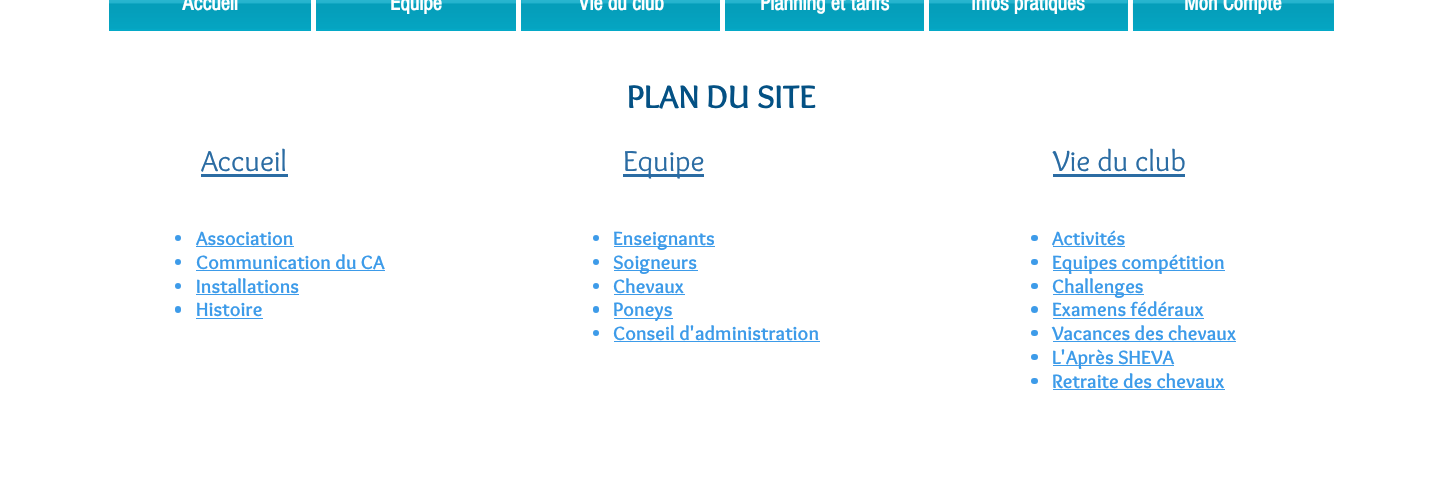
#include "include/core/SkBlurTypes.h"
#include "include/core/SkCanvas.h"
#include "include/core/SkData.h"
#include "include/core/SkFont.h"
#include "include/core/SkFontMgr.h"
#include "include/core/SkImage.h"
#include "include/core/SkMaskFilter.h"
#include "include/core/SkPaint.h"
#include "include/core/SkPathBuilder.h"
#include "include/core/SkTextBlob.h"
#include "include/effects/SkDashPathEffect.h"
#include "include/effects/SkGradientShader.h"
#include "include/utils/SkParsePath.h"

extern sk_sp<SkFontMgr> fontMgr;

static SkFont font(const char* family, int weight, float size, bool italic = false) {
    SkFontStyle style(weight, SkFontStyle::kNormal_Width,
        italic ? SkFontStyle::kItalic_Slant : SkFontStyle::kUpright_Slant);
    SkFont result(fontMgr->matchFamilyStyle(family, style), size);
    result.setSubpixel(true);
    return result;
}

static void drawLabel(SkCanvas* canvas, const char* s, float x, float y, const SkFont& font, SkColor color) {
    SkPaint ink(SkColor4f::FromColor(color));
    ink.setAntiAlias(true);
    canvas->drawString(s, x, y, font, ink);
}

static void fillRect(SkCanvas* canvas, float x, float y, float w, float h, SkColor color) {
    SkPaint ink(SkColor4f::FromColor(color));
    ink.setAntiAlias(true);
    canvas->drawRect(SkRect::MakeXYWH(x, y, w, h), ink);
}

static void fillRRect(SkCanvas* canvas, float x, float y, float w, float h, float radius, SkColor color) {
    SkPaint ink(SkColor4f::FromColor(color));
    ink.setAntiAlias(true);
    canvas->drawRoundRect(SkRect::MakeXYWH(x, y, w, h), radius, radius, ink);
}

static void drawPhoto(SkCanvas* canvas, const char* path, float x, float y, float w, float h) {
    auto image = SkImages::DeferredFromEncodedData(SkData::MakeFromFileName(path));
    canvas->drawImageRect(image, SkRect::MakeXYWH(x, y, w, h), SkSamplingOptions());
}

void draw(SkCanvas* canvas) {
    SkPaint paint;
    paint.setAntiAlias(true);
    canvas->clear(0xFFFFFFFF);
    fillRect(canvas, 109, 0, 202, 31, 0xFF05A9C7);
    drawPhoto(canvas, "assets/img1.png", 109, 0, 202, 29);
    SkFont font1 = font("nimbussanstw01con", 700, 22.5f);
    drawLabel(canvas, "Accueil", 182, 10, font1, 0xFFFFFFFF);
    fillRect(canvas, 316, 0, 200, 31, 0xFF05A9C7);
    drawPhoto(canvas, "assets/img2.png", 316, 0, 200, 29);
    drawLabel(canvas, "Équipe", 390, 10, font1, 0xFFFFFFFF);
    fillRect(canvas, 521, 0, 199, 31, 0xFF05A9C7);
    drawPhoto(canvas, "assets/img3.png", 521, 0, 199, 29);
    drawLabel(canvas, "Vie du club", 578, 10, font1, 0xFFFFFFFF);
    fillRect(canvas, 725, 0, 199, 31, 0xFF05A9C7);
    drawPhoto(canvas, "assets/img4.png", 725, 0, 199, 29);
    drawLabel(canvas, "Planning et tarifs", 760, 10, font1, 0xFFFFFFFF);
    fillRect(canvas, 929, 0, 199, 31, 0xFF05A9C7);
    drawPhoto(canvas, "assets/img5.png", 929, 0, 199, 29);
    drawLabel(canvas, "Infos pratiques", 971, 10, font1, 0xFFFFFFFF);
    fillRect(canvas, 1133, 0, 201, 31, 0xFF05A9C7);
    drawPhoto(canvas, "assets/img6.png", 1132, 0, 202, 29);
    drawLabel(canvas, "Mon Compte", 1184, 10, font1, 0xFFFFFFFF);
    SkFont font2 = font("Overlock", 700, 33.75f);
    drawLabel(canvas, "PLAN DU SITE", 627, 108, font2, 0xFF045184);
    SkFont font3 = font("Overlock", 400, 30);
    drawLabel(canvas, "Accueil", 201, 171, font3, 0xFF2B6CA3);
    fillRect(canvas, 201, 174, 87, 3, 0xFF2B6CA3);
    fillRect(canvas, 623, 174, 81, 3, 0xFF2B6CA3);
    drawLabel(canvas, "Equipe", 623, 171, font3, 0xFF2B6CA3);
    drawLabel(canvas, "Vie du club", 1053, 171, font3, 0xFF2B6CA3);
    fillRect(canvas, 1053, 174, 132, 3, 0xFF2B6CA3);
    paint.setColor(0xFF3D9BE9);
    canvas->drawCircle(178, 238, 3, paint);
    SkFont font4 = font("Overlock", 700, 20);
    drawLabel(canvas, "Association", 196, 245, font4, 0xFF3D9BE9);
    fillRect(canvas, 196, 246, 98, 1, 0xFF3D9BE9);
    canvas->drawCircle(178, 262, 3, paint);
    drawLabel(canvas, "Communication du CA", 196, 269, font4, 0xFF3D9BE9);
    fillRect(canvas, 196, 270, 189, 1, 0xFF3D9BE9);
    canvas->drawCircle(178, 286, 3, paint);
    drawLabel(canvas, "Installations", 196, 293, font4, 0xFF3D9BE9);
    fillRect(canvas, 196, 294, 103, 1, 0xFF3D9BE9);
    fillRRect(canvas, 175, 306, 6, 7, 3, 0xFF3D9BE9);
    drawLabel(canvas, "Histoire", 196, 316, font4, 0xFF3D9BE9);
    fillRect(canvas, 196, 318, 67, 1, 0xFF3D9BE9);
    canvas->drawCircle(596, 238, 3, paint);
    fillRect(canvas, 614, 246, 101, 1, 0xFF3D9BE9);
    drawLabel(canvas, "Enseignants", 613, 245, font4, 0xFF3D9BE9);
    canvas->drawCircle(596, 262, 3, paint);
    fillRect(canvas, 614, 270, 84, 1, 0xFF3D9BE9);
    drawLabel(canvas, "Soigneurs", 613, 269, font4, 0xFF3D9BE9);
    canvas->drawCircle(596, 286, 3, paint);
    drawLabel(canvas, "Chevaux", 613, 293, font4, 0xFF3D9BE9);
    fillRect(canvas, 614, 294, 71, 1, 0xFF3D9BE9);
    fillRRect(canvas, 593, 306, 6, 7, 3, 0xFF3D9BE9);
    fillRect(canvas, 614, 318, 59, 1, 0xFF3D9BE9);
    drawLabel(canvas, "Poneys", 613, 316, font4, 0xFF3D9BE9);
    canvas->drawCircle(596, 333, 3, paint);
    drawLabel(canvas, "Conseil d'administration", 613, 340, font4, 0xFF3D9BE9);
    fillRect(canvas, 614, 341, 206, 1, 0xFF3D9BE9);
    fillRRect(canvas, 1031, 235, 7, 6, 3, 0xFF3D9BE9);
    drawLabel(canvas, "Activités", 1052, 245, font4, 0xFF3D9BE9);
    fillRect(canvas, 1053, 246, 72, 1, 0xFF3D9BE9);
    fillRRect(canvas, 1031, 259, 7, 6, 3, 0xFF3D9BE9);
    fillRect(canvas, 1053, 270, 172, 1, 0xFF3D9BE9);
    drawLabel(canvas, "Equipes compétition", 1052, 269, font4, 0xFF3D9BE9);
    fillRRect(canvas, 1031, 283, 7, 6, 3, 0xFF3D9BE9);
    fillRect(canvas, 1053, 294, 91, 1, 0xFF3D9BE9);
    drawLabel(canvas, "Challenges", 1052, 293, font4, 0xFF3D9BE9);
    canvas->drawCircle(1034.5f, 309.5f, 3.5f, paint);
    drawLabel(canvas, "Examens fédéraux", 1052, 316, font4, 0xFF3D9BE9);
    fillRect(canvas, 1053, 318, 151, 1, 0xFF3D9BE9);
    fillRRect(canvas, 1031, 330, 7, 6, 3, 0xFF3D9BE9);
    drawLabel(canvas, "Vacances des chevaux", 1052, 340, font4, 0xFF3D9BE9);
    fillRect(canvas, 1053, 341, 183, 1, 0xFF3D9BE9);
    fillRRect(canvas, 1031, 354, 7, 6, 3, 0xFF3D9BE9);
    fillRect(canvas, 1053, 365, 121, 1, 0xFF3D9BE9);
    drawLabel(canvas, "L'Après SHEVA", 1052, 364, font4, 0xFF3D9BE9);
    fillRRect(canvas, 1031, 378, 7, 6, 3, 0xFF3D9BE9);
    drawLabel(canvas, "Retraite des chevaux", 1052, 388, font4, 0xFF3D9BE9);
    fillRect(canvas, 1053, 389, 172, 1, 0xFF3D9BE9);
}
